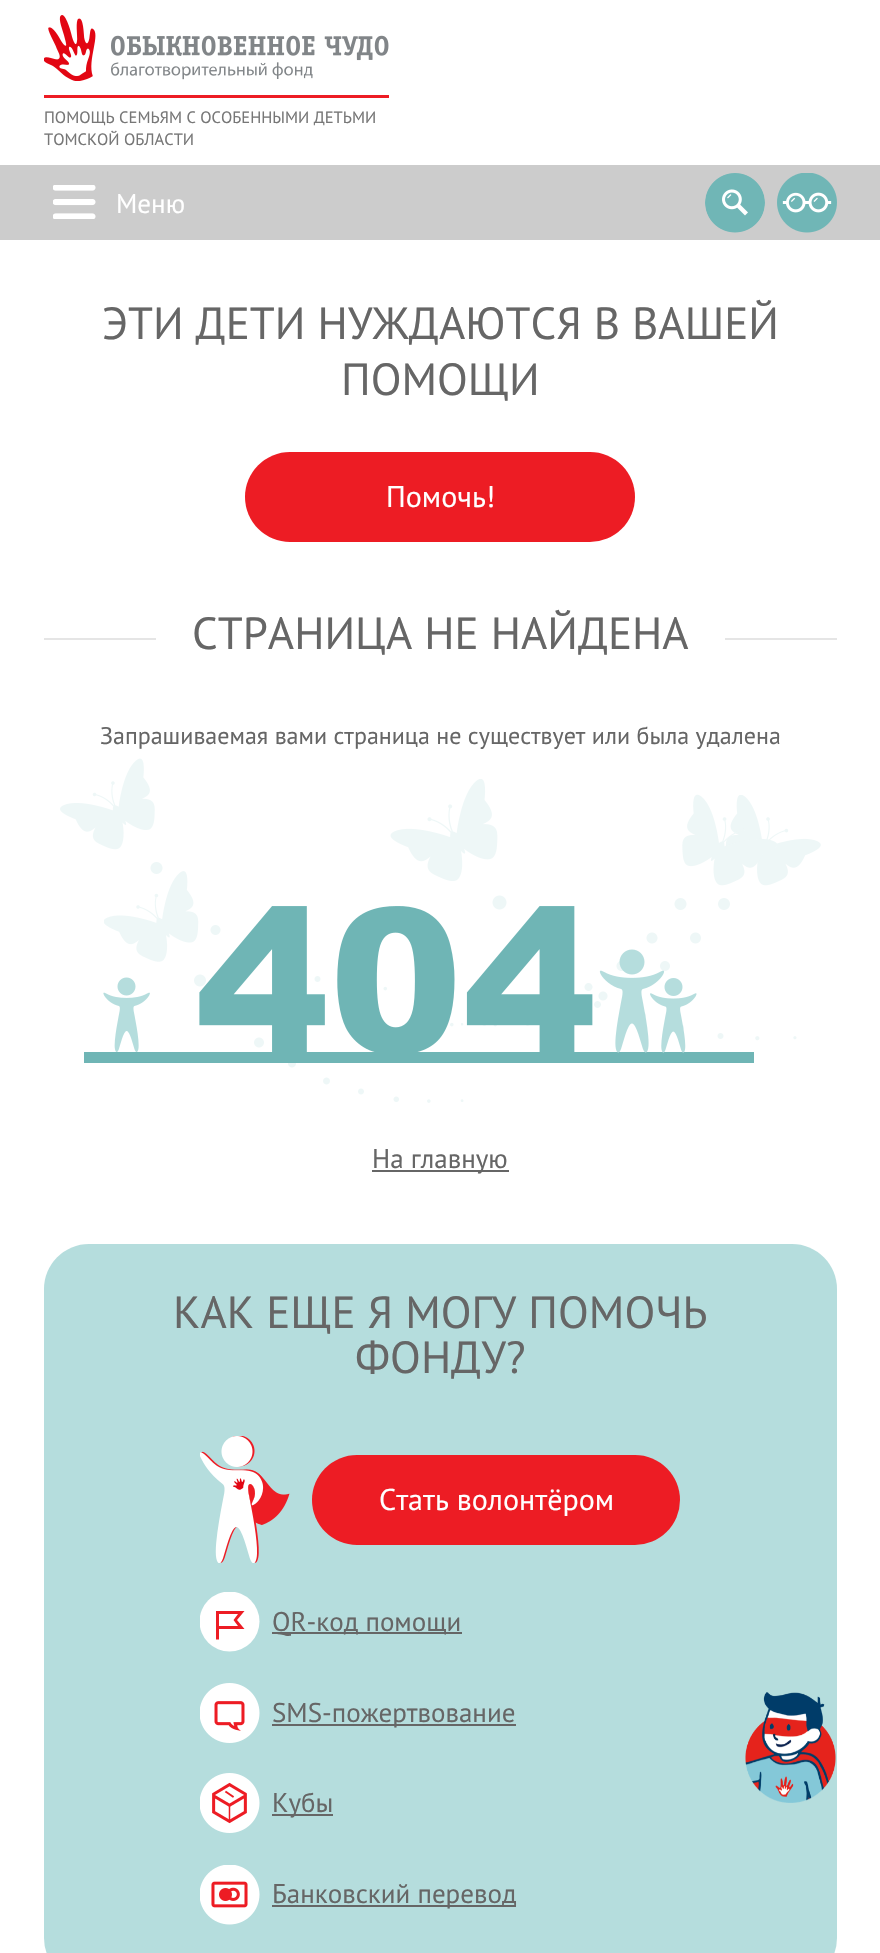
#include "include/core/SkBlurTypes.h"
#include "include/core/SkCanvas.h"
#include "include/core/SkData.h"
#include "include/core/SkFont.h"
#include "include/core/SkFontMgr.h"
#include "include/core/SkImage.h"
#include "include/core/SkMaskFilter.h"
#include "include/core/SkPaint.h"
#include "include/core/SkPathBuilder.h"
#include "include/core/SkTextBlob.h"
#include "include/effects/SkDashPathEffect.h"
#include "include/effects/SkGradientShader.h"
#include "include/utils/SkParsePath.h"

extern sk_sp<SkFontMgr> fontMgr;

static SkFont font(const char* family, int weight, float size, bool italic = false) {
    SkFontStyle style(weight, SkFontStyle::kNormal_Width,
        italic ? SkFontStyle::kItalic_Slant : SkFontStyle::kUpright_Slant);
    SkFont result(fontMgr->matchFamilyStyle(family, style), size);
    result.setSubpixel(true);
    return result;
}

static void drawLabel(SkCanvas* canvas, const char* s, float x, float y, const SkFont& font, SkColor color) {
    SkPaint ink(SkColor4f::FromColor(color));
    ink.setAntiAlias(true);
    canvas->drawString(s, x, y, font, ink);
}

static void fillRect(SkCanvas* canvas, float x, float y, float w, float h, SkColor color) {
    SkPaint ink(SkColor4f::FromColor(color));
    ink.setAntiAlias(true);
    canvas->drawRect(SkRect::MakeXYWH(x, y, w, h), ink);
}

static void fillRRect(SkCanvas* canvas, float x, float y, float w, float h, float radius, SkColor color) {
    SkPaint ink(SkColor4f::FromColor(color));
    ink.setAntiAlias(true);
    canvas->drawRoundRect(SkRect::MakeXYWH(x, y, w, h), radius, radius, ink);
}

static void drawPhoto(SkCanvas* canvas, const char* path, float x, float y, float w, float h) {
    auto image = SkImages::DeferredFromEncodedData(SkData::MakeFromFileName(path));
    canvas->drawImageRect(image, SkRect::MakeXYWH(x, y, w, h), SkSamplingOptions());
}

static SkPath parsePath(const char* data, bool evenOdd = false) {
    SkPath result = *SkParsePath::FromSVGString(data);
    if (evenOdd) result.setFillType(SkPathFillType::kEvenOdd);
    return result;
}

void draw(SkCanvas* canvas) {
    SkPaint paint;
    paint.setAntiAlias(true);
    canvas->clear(0xFFFFFFFF);
    drawPhoto(canvas, "assets/img1.png", 44, 15, 345, 66);
    fillRect(canvas, 44, 95, 345, 3, 0xFFED1C24);
    SkFont font1 = font("PT Sans", 400, 16.5f);
    drawLabel(canvas, "ПОМОЩЬ СЕМЬЯМ С ОСОБЕННЫМИ ДЕТЬМИ", 44, 123, font1, 0xFF777777);
    drawLabel(canvas, "ТОМСКОЙ ОБЛАСТИ", 44, 145, font1, 0xFF777777);
    fillRect(canvas, 0, 165, 880, 75, 0xFFCCCCCC);
    drawPhoto(canvas, "assets/img2.png", 53, 185, 43, 34);
    SkFont font2 = font("PT Sans", 400, 27);
    drawLabel(canvas, "Меню", 116, 213, font2, 0xFFFFFFFF);
    drawPhoto(canvas, "assets/img3.png", 705, 173, 60, 60);
    drawPhoto(canvas, "assets/img4.png", 777, 173, 60, 60);
    SkFont font3 = font("PT Sans", 400, 45);
    drawLabel(canvas, "ЭТИ ДЕТИ НУЖДАЮТСЯ В ВАШЕЙ", 102, 339, font3, 0xFF666666);
    drawLabel(canvas, "ПОМОЩИ", 341, 395, font3, 0xFF666666);
    fillRRect(canvas, 245, 452, 390, 90, 45, 0xFFED1C24);
    SkFont font4 = font("PT Sans", 400, 30);
    drawLabel(canvas, "Помочь!", 386, 507, font4, 0xFFFFFFFF);
    drawPhoto(canvas, "assets/img5.png", 461, 795, 360, 232);
    drawPhoto(canvas, "assets/img6.png", 60, 758, 328, 233);
    fillRect(canvas, 44, 638, 793, 2, 0xFFE5E5E5);
    fillRect(canvas, 156, 638, 569, 2, 0xFFFFFFFF);
    drawLabel(canvas, "СТРАНИЦА НЕ НАЙДЕНА", 192, 649, font3, 0xFF666666);
    drawPhoto(canvas, "assets/img7.png", 450, 794, 327, 233);
    drawPhoto(canvas, "assets/img8.png", 104, 871, 360, 232);
    SkFont font5 = font("PT Sans", 400, 24);
    drawLabel(canvas, "Запрашиваемая вами страница не существует или была удалена", 100, 744, font5, 0xFF666666);
    drawPhoto(canvas, "assets/img9.png", 84, 779, 713, 284);
    fillRect(canvas, 372, 1170, 137, 2, 0xFF666666);
    drawLabel(canvas, "На главную", 372, 1168, font2, 0xFF666666);
    fillRRect(canvas, 44, 1244, 793, 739, 45, 0xFFB5DDDD);
    drawLabel(canvas, "КАК ЕЩЕ Я МОГУ ПОМОЧЬ", 173, 1328, font3, 0xFF666666);
    drawLabel(canvas, "ФОНДУ?", 355, 1373, font3, 0xFF666666);
    drawPhoto(canvas, "assets/img10.png", 200, 1436, 90, 127);
    fillRRect(canvas, 312, 1455, 368, 90, 45, 0xFFED1C24);
    drawLabel(canvas, "Стать волонтёром", 379, 1510, font4, 0xFFFFFFFF);
    canvas->save();
    canvas->clipRect(SkRect::MakeXYWH(200, 1592, 60, 60));
    paint.setColor(0xFFFFFFFF);
    canvas->drawCircle(229.5f, 1621.5f, 30, paint);
    canvas->restore();
    paint.setColor(0xFFED1C24);
    canvas->drawPath(parsePath("M219 1639.5H216V1611H244.5L237 1620L244.5 1629H219ZM219 1626H238L233.5 1620L238 1614H219Z"), paint);
    fillRect(canvas, 272, 1632, 190, 2, 0xFF666666);
    drawLabel(canvas, "QR-код помощи", 272, 1631, font2, 0xFF666666);
    drawPhoto(canvas, "assets/img11.png", 200, 1683, 60, 60);
    fillRect(canvas, 272, 1724, 244, 2, 0xFF666666);
    drawLabel(canvas, "SMS-пожертвование", 272, 1722, font2, 0xFF666666);
    drawPhoto(canvas, "assets/img12.png", 200, 1773, 60, 60);
    fillRect(canvas, 272, 1814, 61, 2, 0xFF666666);
    drawLabel(canvas, "Кубы", 272, 1812, font2, 0xFF666666);
    drawPhoto(canvas, "assets/img13.png", 200, 1865, 60, 60);
    fillRect(canvas, 272, 1905, 244, 2, 0xFF666666);
    drawLabel(canvas, "Банковский перевод", 272, 1903, font2, 0xFF666666);
    drawPhoto(canvas, "assets/img14.png", 745, 1692, 91, 111);
}
